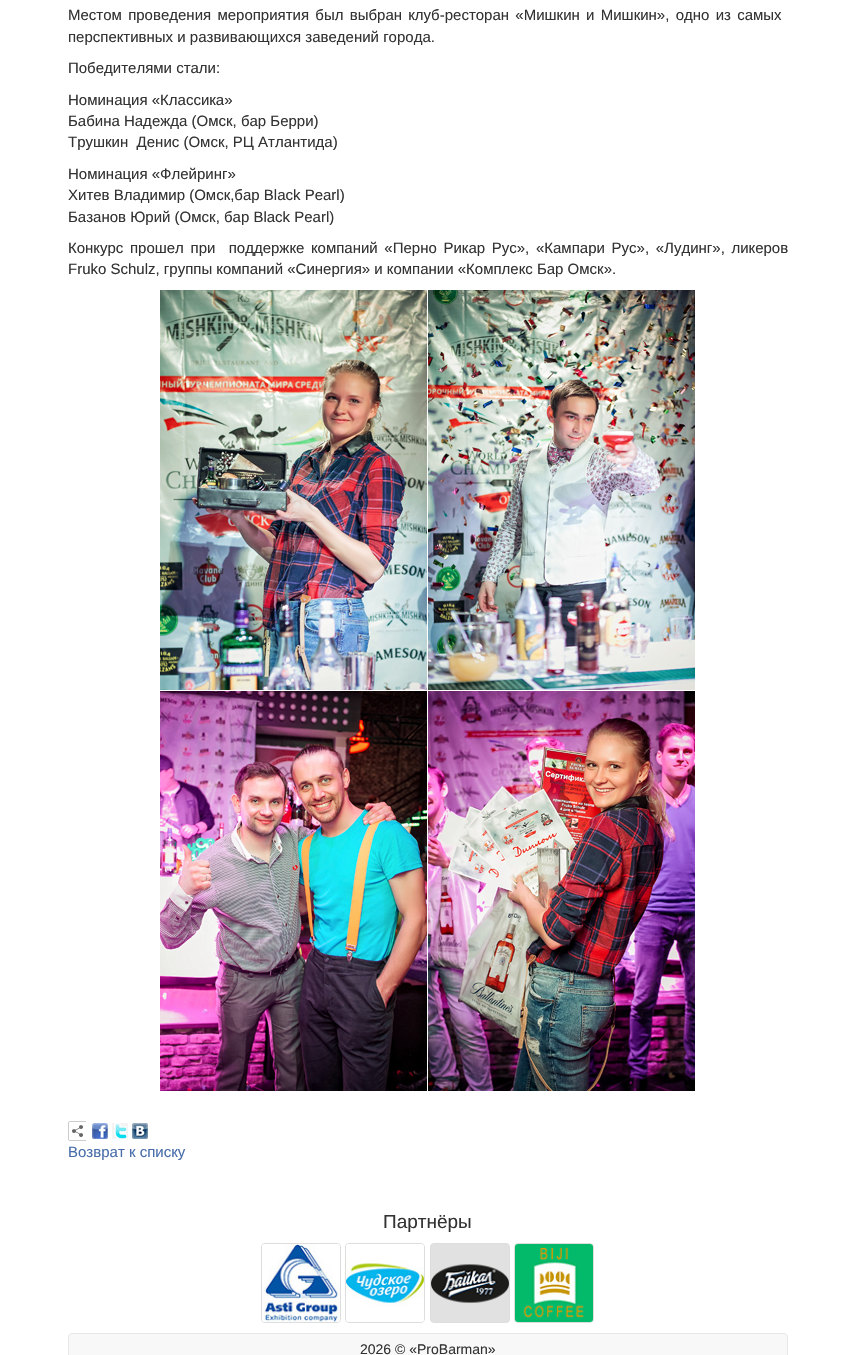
#include "include/core/SkBlurTypes.h"
#include "include/core/SkCanvas.h"
#include "include/core/SkData.h"
#include "include/core/SkFont.h"
#include "include/core/SkFontMgr.h"
#include "include/core/SkImage.h"
#include "include/core/SkMaskFilter.h"
#include "include/core/SkPaint.h"
#include "include/core/SkPathBuilder.h"
#include "include/core/SkTextBlob.h"
#include "include/effects/SkDashPathEffect.h"
#include "include/effects/SkGradientShader.h"
#include "include/utils/SkParsePath.h"

extern sk_sp<SkFontMgr> fontMgr;

static SkFont font(const char* family, int weight, float size, bool italic = false) {
    SkFontStyle style(weight, SkFontStyle::kNormal_Width,
        italic ? SkFontStyle::kItalic_Slant : SkFontStyle::kUpright_Slant);
    SkFont result(fontMgr->matchFamilyStyle(family, style), size);
    result.setSubpixel(true);
    return result;
}

static void drawLabel(SkCanvas* canvas, const char* s, float x, float y, const SkFont& font, SkColor color) {
    SkPaint ink(SkColor4f::FromColor(color));
    ink.setAntiAlias(true);
    canvas->drawString(s, x, y, font, ink);
}

static void drawTracked(SkCanvas* canvas, const char* s, float x, float y, const SkFont& font, const SkPaint& ink, float letter, float word) {
    std::vector<SkGlyphID> glyphs(font.countText(s, strlen(s), SkTextEncoding::kUTF8));
    std::vector<float> xs(glyphs.size());
    font.textToGlyphs(s, strlen(s), SkTextEncoding::kUTF8, glyphs);
    font.getXPos(glyphs, xs, x);
    float extra = 0;
    for (size_t i = 0; i < glyphs.size(); i++) {
        xs[i] += extra;
        extra += letter + word * (glyphs[i] == font.unicharToGlyph(' '));
    }
    canvas->drawTextBlob(SkTextBlob::MakeFromPosHGlyphs(glyphs, xs, y, font), 0, 0, ink);
}

static void drawPhoto(SkCanvas* canvas, const char* path, float x, float y, float w, float h) {
    auto image = SkImages::DeferredFromEncodedData(SkData::MakeFromFileName(path));
    canvas->drawImageRect(image, SkRect::MakeXYWH(x, y, w, h), SkSamplingOptions());
}

void draw(SkCanvas* canvas) {
    SkPaint paint;
    paint.setAntiAlias(true);
    canvas->clear(0xFFFFFFFF);
    SkFont font1 = font("Liberation Sans", 400, 15);
    paint.setColor(0xFF333333);
    drawTracked(canvas, "Местом проведения мероприятия был выбран клуб-ресторан «Мишкин и Мишкин», одно из самых", 68, 20, font1, paint, 0, 2.1f);
    drawLabel(canvas, "перспективных и развивающихся заведений города.", 68, 42, font1, 0xFF333333);
    drawLabel(canvas, "Победителями стали:", 68, 73, font1, 0xFF333333);
    drawLabel(canvas, "Номинация «Классика»", 68, 105, font1, 0xFF333333);
    drawLabel(canvas, "Бабина Надежда (Омск, бар Берри)", 68, 126, font1, 0xFF333333);
    drawLabel(canvas, "Трушкин  Денис (Омск, РЦ Атлантида)", 68, 147, font1, 0xFF333333);
    drawLabel(canvas, "Номинация «Флейринг»", 68, 179, font1, 0xFF333333);
    drawLabel(canvas, "Хитев Владимир (Омск,бар Black Pearl)", 68, 200, font1, 0xFF333333);
    drawLabel(canvas, "Базанов Юрий (Омск, бар Black Pearl)", 68, 222, font1, 0xFF333333);
    drawTracked(canvas, "Конкурс прошел при  поддержке компаний «Перно Рикар Рус», «Кампари Рус», «Лудинг», ликеров", 68, 253, font1, paint, 0, 2.5f);
    drawLabel(canvas, "Fruko Schulz, группы компаний «Синергия» и компании «Комплекс Бар Омск».", 68, 274, font1, 0xFF333333);
    drawPhoto(canvas, "assets/img1.png", 160, 290, 535, 801);
    drawPhoto(canvas, "assets/img2.png", 68, 1121, 18, 20);
    drawPhoto(canvas, "assets/img3.png", 92, 1123, 16, 16);
    drawPhoto(canvas, "assets/img4.png", 112, 1123, 16, 16);
    drawPhoto(canvas, "assets/img5.png", 132, 1123, 16, 16);
    drawLabel(canvas, "Возврат к списку", 68, 1157, font1, 0xFF486DAA);
    SkFont font2 = font("Liberation Sans", 400, 19);
    drawLabel(canvas, "Партнёры", 383, 1228, font2, 0xFF333333);
    paint.setStroke(true);
    paint.setStrokeWidth(1);
    paint.setColor(0xFFDDDDDD);
    canvas->drawRoundRect(SkRect::MakeXYWH(261.5f, 1243.5f, 79, 79), 3.5f, 3.5f, paint);
    drawPhoto(canvas, "assets/img6.png", 262, 1244, 78, 78);
    canvas->drawRoundRect(SkRect::MakeXYWH(345.5f, 1243.5f, 79, 79), 3.5f, 3.5f, paint);
    drawPhoto(canvas, "assets/img7.png", 346, 1244, 78, 78);
    paint.setStroke(false);
    paint.setColor(0xFFE1E1E1);
    canvas->drawRoundRect(SkRect::MakeXYWH(430.5f, 1243.5f, 79, 79), 3.5f, 3.5f, paint);
    paint.setStroke(true);
    paint.setColor(0xFFDDDDDD);
    canvas->drawRoundRect(SkRect::MakeXYWH(430.5f, 1243.5f, 79, 79), 3.5f, 3.5f, paint);
    drawPhoto(canvas, "assets/img8.png", 431, 1264, 78, 39);
    canvas->drawRoundRect(SkRect::MakeXYWH(514.5f, 1243.5f, 79, 79), 3.5f, 3.5f, paint);
    drawPhoto(canvas, "assets/img9.png", 515, 1244, 78, 78);
    paint.setStroke(false);
    paint.setColor(0xFFF8F8F8);
    canvas->drawRoundRect(SkRect::MakeXYWH(68.5f, 1333.5f, 719, 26), 3.5f, 3.5f, paint);
    paint.setStroke(true);
    paint.setColor(0xFFE7E7E7);
    canvas->drawRoundRect(SkRect::MakeXYWH(68.5f, 1333.5f, 719, 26), 3.5f, 3.5f, paint);
    SkFont font3 = font("Liberation Sans", 400, 14);
    drawLabel(canvas, "2026 © «ProBarman»", 360, 1354, font3, 0xFF333333);
}
